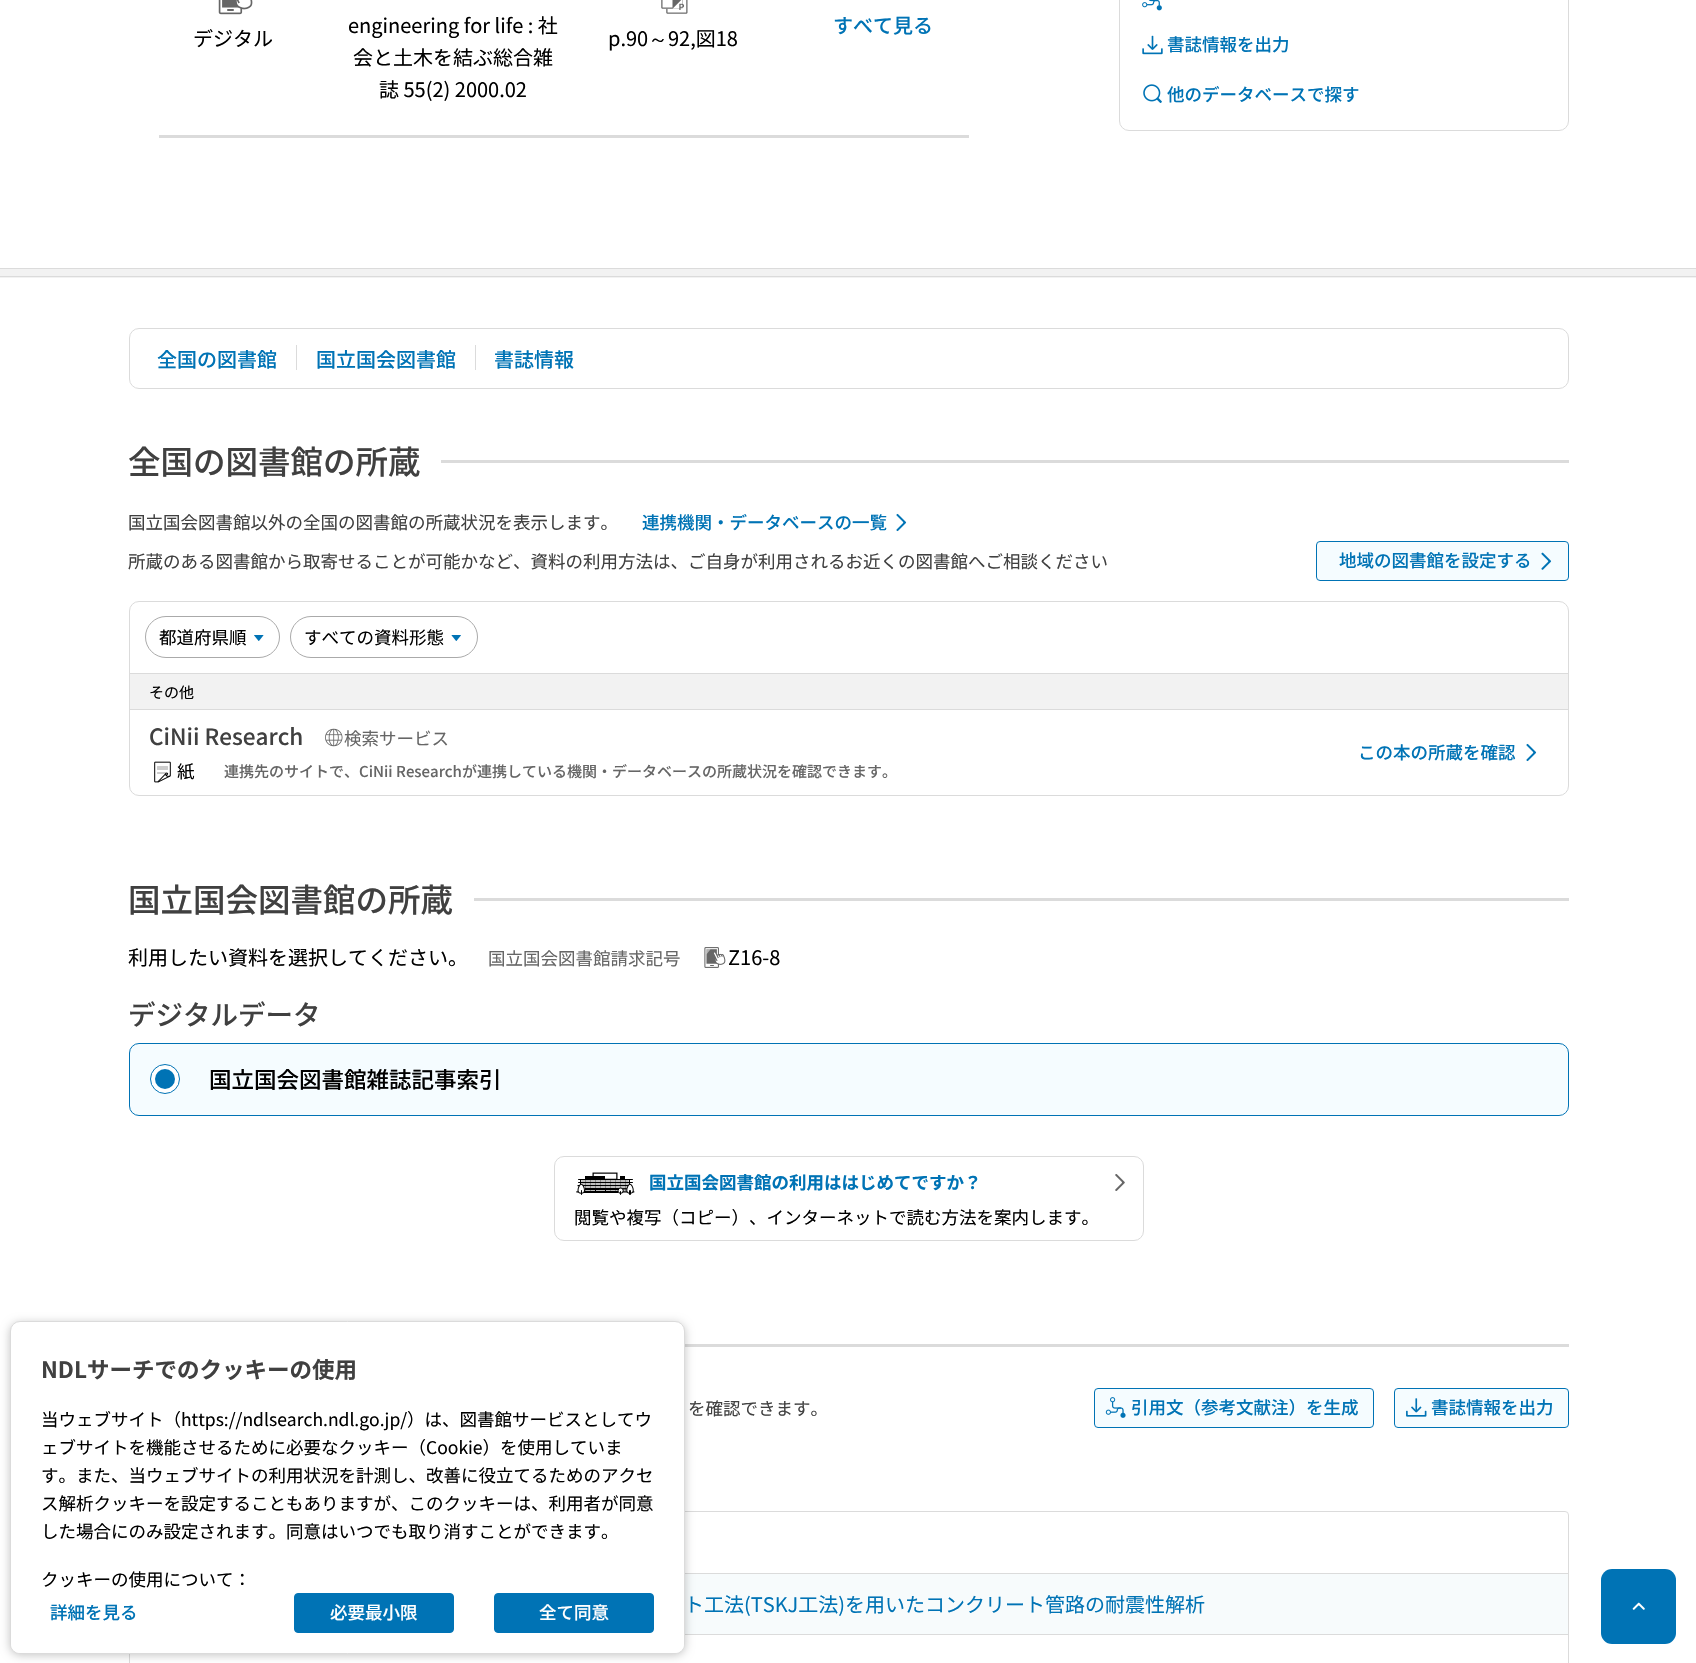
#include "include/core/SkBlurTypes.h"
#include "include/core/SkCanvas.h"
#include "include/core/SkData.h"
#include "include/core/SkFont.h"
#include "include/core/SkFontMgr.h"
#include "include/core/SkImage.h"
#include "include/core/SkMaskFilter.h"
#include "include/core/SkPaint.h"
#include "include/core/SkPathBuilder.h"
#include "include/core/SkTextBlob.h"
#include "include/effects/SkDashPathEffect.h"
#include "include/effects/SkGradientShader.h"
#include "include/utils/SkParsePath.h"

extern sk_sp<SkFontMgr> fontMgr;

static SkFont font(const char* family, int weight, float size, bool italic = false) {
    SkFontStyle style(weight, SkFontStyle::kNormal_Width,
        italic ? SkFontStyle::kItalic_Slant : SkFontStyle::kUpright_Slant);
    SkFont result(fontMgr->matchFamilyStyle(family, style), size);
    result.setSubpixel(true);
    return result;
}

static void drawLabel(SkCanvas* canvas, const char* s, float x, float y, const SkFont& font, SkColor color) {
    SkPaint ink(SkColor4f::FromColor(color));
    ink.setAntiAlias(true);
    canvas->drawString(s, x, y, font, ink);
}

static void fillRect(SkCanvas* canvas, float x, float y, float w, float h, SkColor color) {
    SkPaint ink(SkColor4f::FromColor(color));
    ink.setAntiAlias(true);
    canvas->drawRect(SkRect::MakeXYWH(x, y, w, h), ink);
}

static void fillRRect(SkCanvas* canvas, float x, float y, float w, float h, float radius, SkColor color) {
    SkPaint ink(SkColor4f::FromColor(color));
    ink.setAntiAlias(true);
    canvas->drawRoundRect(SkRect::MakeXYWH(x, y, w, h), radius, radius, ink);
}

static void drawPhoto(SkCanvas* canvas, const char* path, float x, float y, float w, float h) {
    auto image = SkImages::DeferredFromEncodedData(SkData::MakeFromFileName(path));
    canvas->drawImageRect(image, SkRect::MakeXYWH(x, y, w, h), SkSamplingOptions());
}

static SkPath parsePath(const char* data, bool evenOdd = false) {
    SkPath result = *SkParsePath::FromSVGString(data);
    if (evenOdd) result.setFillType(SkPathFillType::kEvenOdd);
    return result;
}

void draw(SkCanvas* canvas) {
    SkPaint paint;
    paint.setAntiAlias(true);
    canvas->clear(0xFFFFFFFF);
    SkFont font1 = font("Noto Sans JP", 400, 20);
    drawLabel(canvas, "engineering for life : 社", 348, 33, font1, 0xFF000000);
    drawLabel(canvas, "会と土木を結ぶ総合雑", 353, 65, font1, 0xFF000000);
    drawLabel(canvas, "誌 55(2) 2000.02", 379, 97, font1, 0xFF000000);
    SkFont font2 = font("Noto Sans JP", 500, 20);
    drawLabel(canvas, "すべて見る", 833, 33, font2, 0xFF0073B5);
    drawPhoto(canvas, "assets/img1.png", 218, 0, 35, 15);
    drawLabel(canvas, "デジタル", 193, 46, font1, 0xFF000000);
    drawPhoto(canvas, "assets/img2.png", 661, 0, 27, 14);
    drawLabel(canvas, "p.90", 608, 46, font1, 0xFF000000);
    SkFont font3 = font("WenQuanYi Zen Hei", 500, 20);
    drawLabel(canvas, "～", 648, 46, font3, 0xFF000000);
    drawLabel(canvas, "92,図18", 668, 46, font1, 0xFF000000);
    fillRect(canvas, 159, 135, 810, 3, 0xFFDBDBDB);
    paint.setStroke(true);
    paint.setStrokeWidth(1);
    paint.setColor(0xFFDBDBDB);
    canvas->drawRoundRect(SkRect::MakeXYWH(1119.5f, -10.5f, 449, 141), 9.5f, 9.5f, paint);
    drawPhoto(canvas, "assets/img3.png", 1142, 0, 20, 11);
    drawPhoto(canvas, "assets/img4.png", 1142, 35, 21, 20);
    SkFont font4 = font("Noto Sans JP", 500, 17.5f);
    drawLabel(canvas, "書誌情報を出力", 1167, 51, font4, 0xFF0073B5);
    drawPhoto(canvas, "assets/img5.png", 1143, 84, 19, 19);
    drawLabel(canvas, "他のデータベースで探す", 1167, 101, font4, 0xFF0073B5);
    fillRect(canvas, 0, 269, 1696, 9, 0xFFF2F2F2);
    fillRect(canvas, 0, 268, 1696, 1, 0xFFDBDBDB);
    fillRect(canvas, 0, 276, 1696, 1, 0xFFDBDBDB);
    canvas->drawRoundRect(SkRect::MakeXYWH(129.5f, 328.5f, 1439, 60), 9.5f, 9.5f, paint);
    drawLabel(canvas, "全国の図書館", 157, 367, font2, 0xFF0073B5);
    fillRect(canvas, 296, 345, 1, 25, 0xFFDBDBDB);
    drawLabel(canvas, "国立国会図書館", 316, 367, font2, 0xFF0073B5);
    fillRect(canvas, 475, 345, 1, 25, 0xFFDBDBDB);
    drawLabel(canvas, "書誌情報", 494, 367, font2, 0xFF0073B5);
    SkFont font5 = font("Noto Sans JP", 500, 32.5f);
    drawLabel(canvas, "全国の図書館の所蔵", 128, 474, font5, 0xFF404040);
    fillRect(canvas, 441, 460, 1128, 3, 0xFFDBDBDB);
    SkFont font6 = font("Noto Sans JP", 400, 17.5f);
    drawLabel(canvas, "国立国会図書館以外の全国の図書館の所蔵状況を表示します。", 128, 529, font6, 0xFF404040);
    drawLabel(canvas, "連携機関・データベースの一覧", 642, 529, font4, 0xFF0073B5);
    drawPhoto(canvas, "assets/img6.png", 896, 513, 11, 19);
    drawLabel(canvas, "所蔵のある図書館から取寄せることが可能かなど、資料の利用方法は、ご自身が利用されるお近くの図書館へご相談ください", 128, 568, font6, 0xFF404040);
    paint.setStroke(false);
    paint.setColor(0xFFF5FCFF);
    canvas->drawRoundRect(SkRect::MakeXYWH(1316.5f, 541.5f, 252, 39), 3.5f, 3.5f, paint);
    paint.setStroke(true);
    paint.setColor(0xFF0073B5);
    canvas->drawRoundRect(SkRect::MakeXYWH(1316.5f, 541.5f, 252, 39), 3.5f, 3.5f, paint);
    drawLabel(canvas, "地域の図書館を設定する", 1339, 567, font4, 0xFF0073B5);
    drawPhoto(canvas, "assets/img7.png", 1541, 552, 11, 18);
    paint.setColor(0xFFDBDBDB);
    canvas->drawRoundRect(SkRect::MakeXYWH(129.5f, 601.5f, 1439, 194), 9.5f, 9.5f, paint);
    drawPhoto(canvas, "assets/img8.png", 254, 635, 10, 6);
    paint.setColor(0xFFAAAAAA);
    canvas->drawRoundRect(SkRect::MakeXYWH(145.5f, 616.5f, 134, 41), 20.5f, 20.5f, paint);
    drawLabel(canvas, "都道府県順", 159, 644, font6, 0xFF000000);
    drawPhoto(canvas, "assets/img9.png", 451, 635, 10, 6);
    canvas->drawRoundRect(SkRect::MakeXYWH(290.5f, 616.5f, 187, 41), 20.5f, 20.5f, paint);
    drawLabel(canvas, "すべての資料形態", 304, 644, font6, 0xFF000000);
    fillRect(canvas, 130, 674, 1438, 35, 0xFFF2F2F2);
    fillRect(canvas, 130, 673, 1438, 1, 0xFFDBDBDB);
    SkFont font7 = font("Noto Sans JP", 400, 15);
    drawLabel(canvas, "その他", 149, 698, font7, 0xFF000000);
    fillRect(canvas, 130, 709, 1438, 1, 0xFFDBDBDB);
    SkFont font8 = font("Noto Sans JP", 500, 22.5f);
    drawLabel(canvas, "CiNii Research", 149, 745, font8, 0xFF404040);
    drawPhoto(canvas, "assets/img10.png", 325, 728, 18, 19);
    drawLabel(canvas, "検索サービス", 344, 745, font6, 0xFF666666);
    drawPhoto(canvas, "assets/img11.png", 154, 761, 17, 22);
    drawLabel(canvas, "紙", 177, 778, font6, 0xFF000000);
    SkFont font9 = font("Noto Sans JP", 500, 15);
    drawLabel(canvas, "連携先のサイトで、CiNii Researchが連携している機関・データベースの所蔵状況を確認できます。", 224, 777, font9, 0xFF666666);
    drawLabel(canvas, "この本の所蔵を確認", 1358, 759, font4, 0xFF0073B5);
    drawPhoto(canvas, "assets/img6.png", 1526, 743, 11, 19);
    drawLabel(canvas, "国立国会図書館の所蔵", 128, 912, font5, 0xFF404040);
    fillRect(canvas, 474, 898, 1095, 3, 0xFFDBDBDB);
    drawLabel(canvas, "利用したい資料を選択してください。", 128, 965, font1, 0xFF000000);
    drawLabel(canvas, "国立国会図書館請求記号", 488, 965, font6, 0xFF666666);
    drawPhoto(canvas, "assets/img12.png", 704, 947, 22, 21);
    drawLabel(canvas, "Z16-8", 728, 965, font1, 0xFF000000);
    SkFont font10 = font("Noto Sans JP", 500, 27.5f);
    drawLabel(canvas, "デジタルデータ", 128, 1025, font10, 0xFF404040);
    paint.setStroke(false);
    paint.setColor(0xFFF5FCFF);
    canvas->drawRoundRect(SkRect::MakeXYWH(129.5f, 1043.5f, 1439, 72), 9.5f, 9.5f, paint);
    paint.setStroke(true);
    paint.setColor(0xFF0073B5);
    canvas->drawRoundRect(SkRect::MakeXYWH(129.5f, 1043.5f, 1439, 72), 9.5f, 9.5f, paint);
    paint.setStroke(false);
    paint.setColor(0xFFFFFFFF);
    canvas->drawCircle(165, 1079, 14.5f, paint);
    paint.setStroke(true);
    paint.setColor(0xFF0073B5);
    canvas->drawCircle(165, 1079, 14.5f, paint);
    paint.setStroke(false);
    canvas->drawCircle(165, 1079, 10, paint);
    drawLabel(canvas, "国立国会図書館雑誌記事索引", 209, 1088, font8, 0xFF000000);
    paint.setStroke(true);
    paint.setColor(0xFFDBDBDB);
    canvas->drawRoundRect(SkRect::MakeXYWH(554.5f, 1156.5f, 589, 84), 9.5f, 9.5f, paint);
    drawPhoto(canvas, "assets/img13.png", 576, 1172, 59, 23);
    SkFont font11 = font("Noto Sans JP", 700, 17.5f);
    drawLabel(canvas, "国立国会図書館の利用ははじめてですか？", 649, 1189, font11, 0xFF0073B5);
    drawLabel(canvas, "閲覧や複写（コピー）、インターネットで読む方法を案内します。", 574, 1224, font6, 0xFF000000);
    drawPhoto(canvas, "assets/img14.png", 1115, 1174, 10, 17);
    fillRect(canvas, 685, 1344, 884, 3, 0xFFDBDBDB);
    drawLabel(canvas, "を確認できます。", 688, 1415, font6, 0xFF404040);
    paint.setStroke(false);
    paint.setColor(0xFFF5FCFF);
    canvas->drawRoundRect(SkRect::MakeXYWH(1094.5f, 1388.5f, 279, 39), 3.5f, 3.5f, paint);
    paint.setStroke(true);
    paint.setColor(0xFF0073B5);
    canvas->drawRoundRect(SkRect::MakeXYWH(1094.5f, 1388.5f, 279, 39), 3.5f, 3.5f, paint);
    drawPhoto(canvas, "assets/img15.png", 1105, 1397, 21, 21);
    drawLabel(canvas, "引用文（参考文献注）を生成", 1131, 1414, font4, 0xFF0073B5);
    paint.setStroke(false);
    paint.setColor(0xFFF5FCFF);
    canvas->drawRoundRect(SkRect::MakeXYWH(1394.5f, 1388.5f, 174, 39), 3.5f, 3.5f, paint);
    paint.setStroke(true);
    paint.setColor(0xFF0073B5);
    canvas->drawRoundRect(SkRect::MakeXYWH(1394.5f, 1388.5f, 174, 39), 3.5f, 3.5f, paint);
    drawPhoto(canvas, "assets/img16.png", 1406, 1398, 21, 19);
    drawLabel(canvas, "書誌情報を出力", 1431, 1414, font4, 0xFF0073B5);
    paint.setColor(0xFFDBDBDB);
    canvas->drawRoundRect(SkRect::MakeXYWH(129.5f, 1511.5f, 1439, 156), 3.5f, 3.5f, paint);
    fillRect(canvas, 685, 1573, 883, 1, 0xFFDBDBDB);
    fillRect(canvas, 685, 1574, 883, 60, 0xFFF7FBFC);
    fillRect(canvas, 685, 1634, 883, 1, 0xFFDBDBDB);
    drawLabel(canvas, "ト工法(TSKJ工法)を用いたコンクリート管路の耐震性解析", 684, 1612, font1, 0xFF0073B5);
    paint.setStroke(false);
    paint.setColor(0x3D000000);
    paint.setMaskFilter(SkMaskFilter::MakeBlur(kNormal_SkBlurStyle, 5));
    canvas->drawRoundRect(SkRect::MakeXYWH(10, 1323, 675, 332), 10, 10, paint);
    paint.setMaskFilter(nullptr);
    paint.setColor(0xFFFFFFFF);
    canvas->drawRoundRect(SkRect::MakeXYWH(10.5f, 1321.5f, 674, 332), 9.5f, 9.5f, paint);
    paint.setStroke(true);
    paint.setColor(0xFFDBDBDB);
    canvas->drawRoundRect(SkRect::MakeXYWH(10.5f, 1321.5f, 674, 332), 9.5f, 9.5f, paint);
    SkFont font12 = font("Noto Sans JP", 700, 22.5f);
    drawLabel(canvas, "NDLサーチでのクッキーの使用", 41, 1378, font12, 0xFF404040);
    drawLabel(canvas, "当ウェブサイト（https://ndlsearch.ndl.go.jp/）は、図書館サービスとしてウ", 41, 1426, font6, 0xFF000000);
    drawLabel(canvas, "ェブサイトを機能させるために必要なクッキー（Cookie）を使用していま", 41, 1454, font6, 0xFF000000);
    drawLabel(canvas, "す。また、当ウェブサイトの利用状況を計測し、改善に役立てるためのアクセ", 41, 1482, font6, 0xFF000000);
    drawLabel(canvas, "ス解析クッキーを設定することもありますが、このクッキーは、利用者が同意", 41, 1510, font6, 0xFF000000);
    drawLabel(canvas, "した場合にのみ設定されます。同意はいつでも取り消すことができます。", 41, 1538, font6, 0xFF000000);
    paint.setStroke(false);
    paint.setColor(0xFFFFFFFF);
    canvas->drawPath(parsePath("M11 1545H684V1644C684 1649 680 1653 675 1653H20C15 1653 11 1649 11 1644Z"), paint);
    drawLabel(canvas, "クッキーの使用について：", 41, 1586, font6, 0xFF000000);
    drawLabel(canvas, "詳細を見る", 50, 1619, font4, 0xFF0073B5);
    paint.setColor(0xFF0073B5);
    canvas->drawRoundRect(SkRect::MakeXYWH(294.5f, 1593.5f, 159, 39), 3.5f, 3.5f, paint);
    paint.setStroke(true);
    canvas->drawRoundRect(SkRect::MakeXYWH(294.5f, 1593.5f, 159, 39), 3.5f, 3.5f, paint);
    drawLabel(canvas, "必要最小限", 330, 1619, font4, 0xFFFFFFFF);
    paint.setStroke(false);
    canvas->drawRoundRect(SkRect::MakeXYWH(494.5f, 1593.5f, 159, 39), 3.5f, 3.5f, paint);
    paint.setStroke(true);
    canvas->drawRoundRect(SkRect::MakeXYWH(494.5f, 1593.5f, 159, 39), 3.5f, 3.5f, paint);
    drawLabel(canvas, "全て同意", 539, 1619, font4, 0xFFFFFFFF);
    fillRRect(canvas, 1601, 1569, 75, 75, 11, 0xFF0073B5);
    drawPhoto(canvas, "assets/img17.png", 1632, 1602, 13, 8);
}
